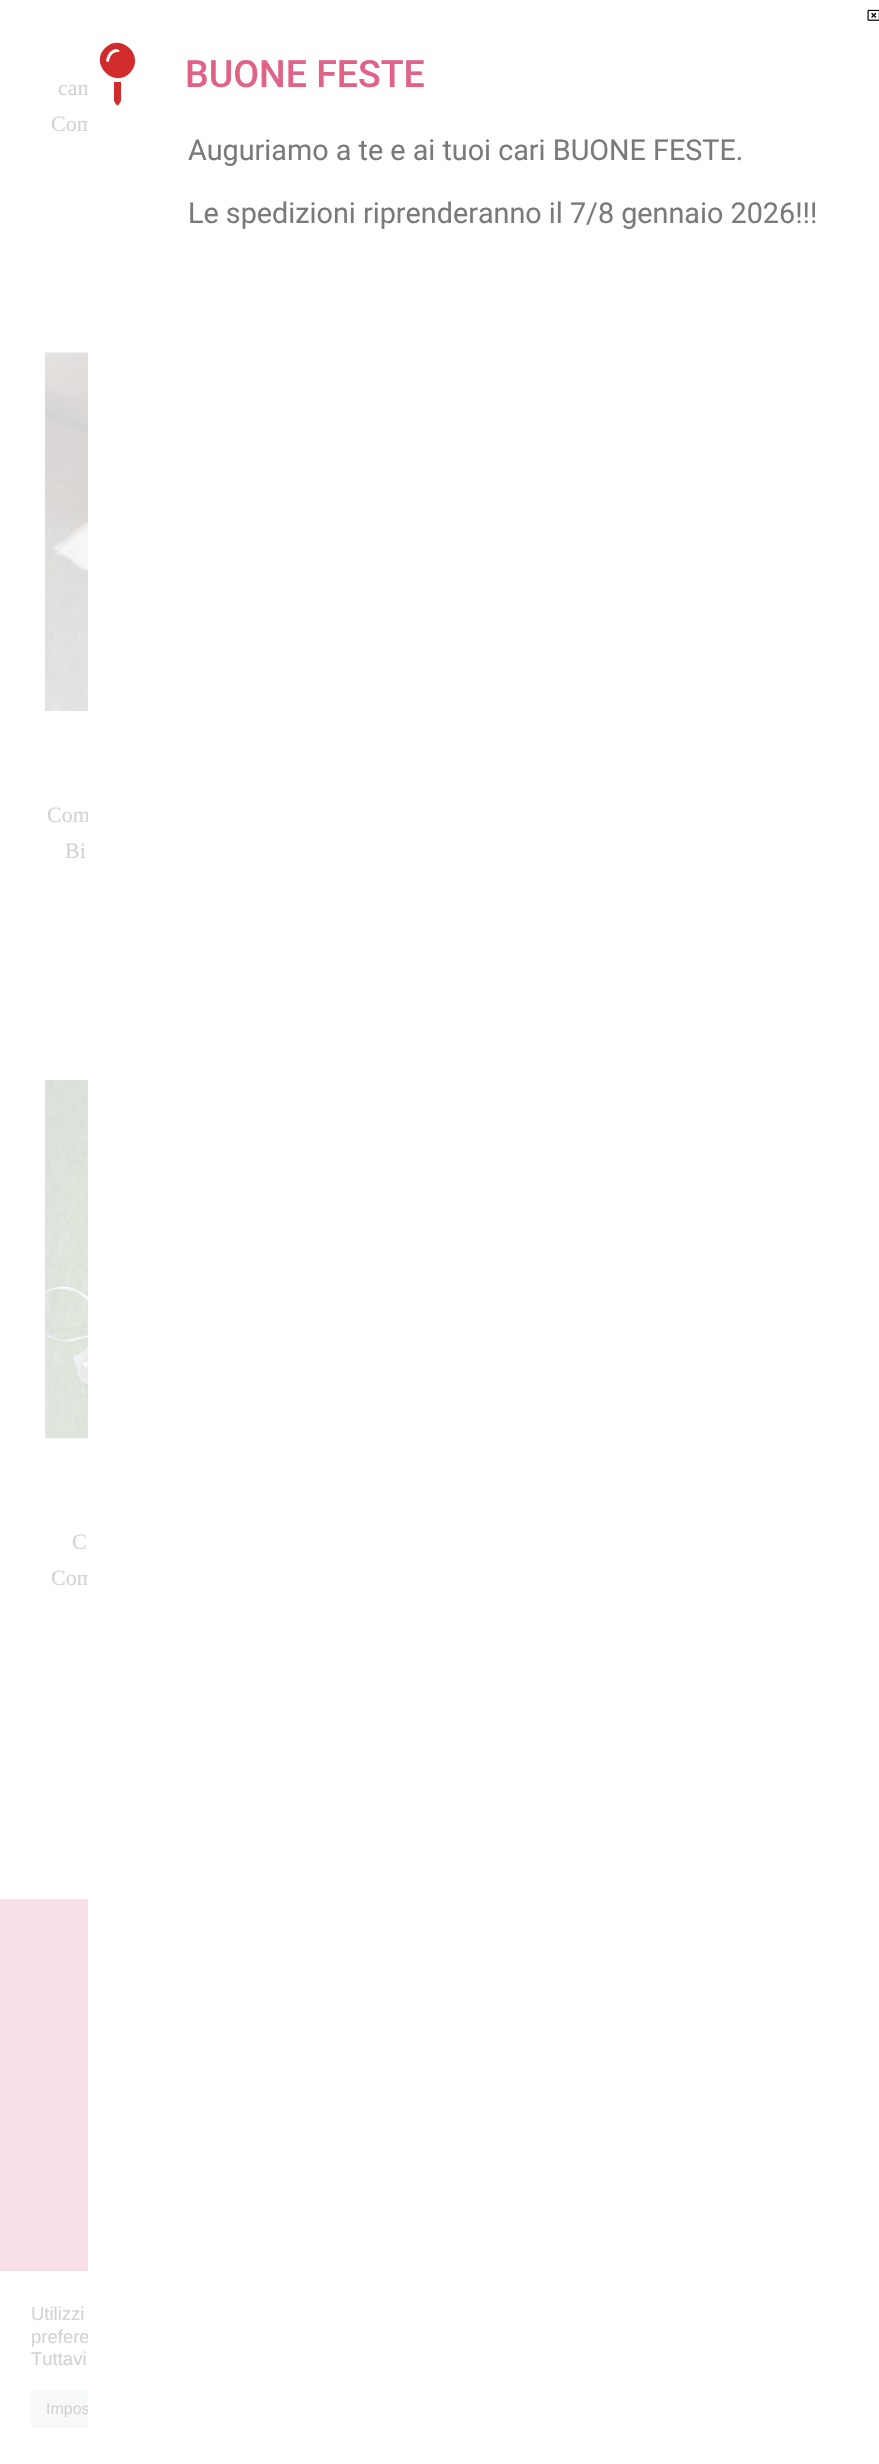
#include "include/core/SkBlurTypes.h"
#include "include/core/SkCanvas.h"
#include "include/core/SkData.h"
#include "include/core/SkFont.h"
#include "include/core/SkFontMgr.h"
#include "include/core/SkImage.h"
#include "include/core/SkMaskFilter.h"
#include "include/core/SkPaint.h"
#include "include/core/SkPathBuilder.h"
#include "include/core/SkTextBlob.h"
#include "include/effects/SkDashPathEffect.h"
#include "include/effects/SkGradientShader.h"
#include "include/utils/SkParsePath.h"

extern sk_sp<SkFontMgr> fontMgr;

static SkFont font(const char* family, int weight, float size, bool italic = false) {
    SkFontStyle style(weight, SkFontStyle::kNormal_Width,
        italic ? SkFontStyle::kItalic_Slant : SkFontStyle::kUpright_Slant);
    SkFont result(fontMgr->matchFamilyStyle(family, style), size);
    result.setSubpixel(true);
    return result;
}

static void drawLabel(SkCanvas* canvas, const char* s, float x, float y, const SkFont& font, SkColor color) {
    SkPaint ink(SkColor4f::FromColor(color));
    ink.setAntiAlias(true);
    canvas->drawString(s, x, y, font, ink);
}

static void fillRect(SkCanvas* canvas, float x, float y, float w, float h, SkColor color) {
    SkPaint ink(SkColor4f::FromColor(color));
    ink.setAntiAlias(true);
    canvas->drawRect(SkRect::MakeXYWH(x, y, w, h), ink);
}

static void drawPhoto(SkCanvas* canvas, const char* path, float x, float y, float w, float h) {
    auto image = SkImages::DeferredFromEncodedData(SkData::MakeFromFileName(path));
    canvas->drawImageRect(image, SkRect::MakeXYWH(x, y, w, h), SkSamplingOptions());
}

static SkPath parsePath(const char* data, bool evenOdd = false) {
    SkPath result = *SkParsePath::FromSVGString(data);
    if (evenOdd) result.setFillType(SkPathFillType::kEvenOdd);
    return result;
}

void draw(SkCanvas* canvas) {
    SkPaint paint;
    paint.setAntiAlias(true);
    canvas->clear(0xFFFFFFFF);
    SkFont font1 = font("Liberation Serif", 400, 22);
    drawLabel(canvas, "cam", 58, 95, font1, 0xFFD3D3D3);
    drawLabel(canvas, "Com", 51, 131, font1, 0xFFD3D3D3);
    drawPhoto(canvas, "assets/img1.png", 45, 352, 43, 359);
    drawLabel(canvas, "Com", 47, 822, font1, 0xFFD3D3D3);
    drawLabel(canvas, "Bi", 65, 858, font1, 0xFFD3D3D3);
    drawPhoto(canvas, "assets/img2.png", 45, 1079, 43, 360);
    drawLabel(canvas, "C", 72, 1549, font1, 0xFFD3D3D3);
    drawLabel(canvas, "Com", 51, 1585, font1, 0xFFD3D3D3);
    fillRect(canvas, 0, 1899, 88, 372, 0xFFF9E0E7);
    SkFont font2 = font("Liberation Sans", 400, 18.5f);
    drawLabel(canvas, "prefere", 31, 2343, font2, 0xFFD3D3D3);
    fillRect(canvas, 31, 2389, 57, 39, 0xFFF8F9F9);
    SkFont font3 = font("Liberation Sans", 400, 16);
    drawLabel(canvas, "Impos", 46, 2414, font3, 0xFFD3D3D3);
    fillRect(canvas, 88, 84, 7, 2330, 0xFFFFFFFF);
    drawPhoto(canvas, "assets/img3.png", 867, 9, 12, 12);
    paint.setColor(0xFFD12B2B);
    canvas->drawPath(parsePath("M114 82C116 82 119 82 121 82V101C117 107 118 107 114 101ZM105 48C121 32 146 56 130 73C114 89 89 64 105 48ZM118 52C122 52 117 45 110 52C108 54 104 62 108 62C110 62 109 52 118 52Z"), paint);
    SkFont font4 = font("Roboto", 500, 37.5f);
    drawLabel(canvas, "BUONE FESTE", 185, 87, font4, 0xFFE06287);
    SkFont font5 = font("Roboto", 400, 28.75f);
    drawLabel(canvas, "Auguriamo a te e ai tuoi cari BUONE FESTE.", 188, 160, font5, 0xFF7A7A7A);
    drawLabel(canvas, "Le spedizioni riprenderanno il 7/8 gennaio 2026!!!", 188, 223, font5, 0xFF7A7A7A);
    drawLabel(canvas, "Utilizzi", 31, 2320, font2, 0xFFD3D3D3);
    drawLabel(canvas, "Tuttavi", 31, 2365, font2, 0xFFD3D3D3);
}
